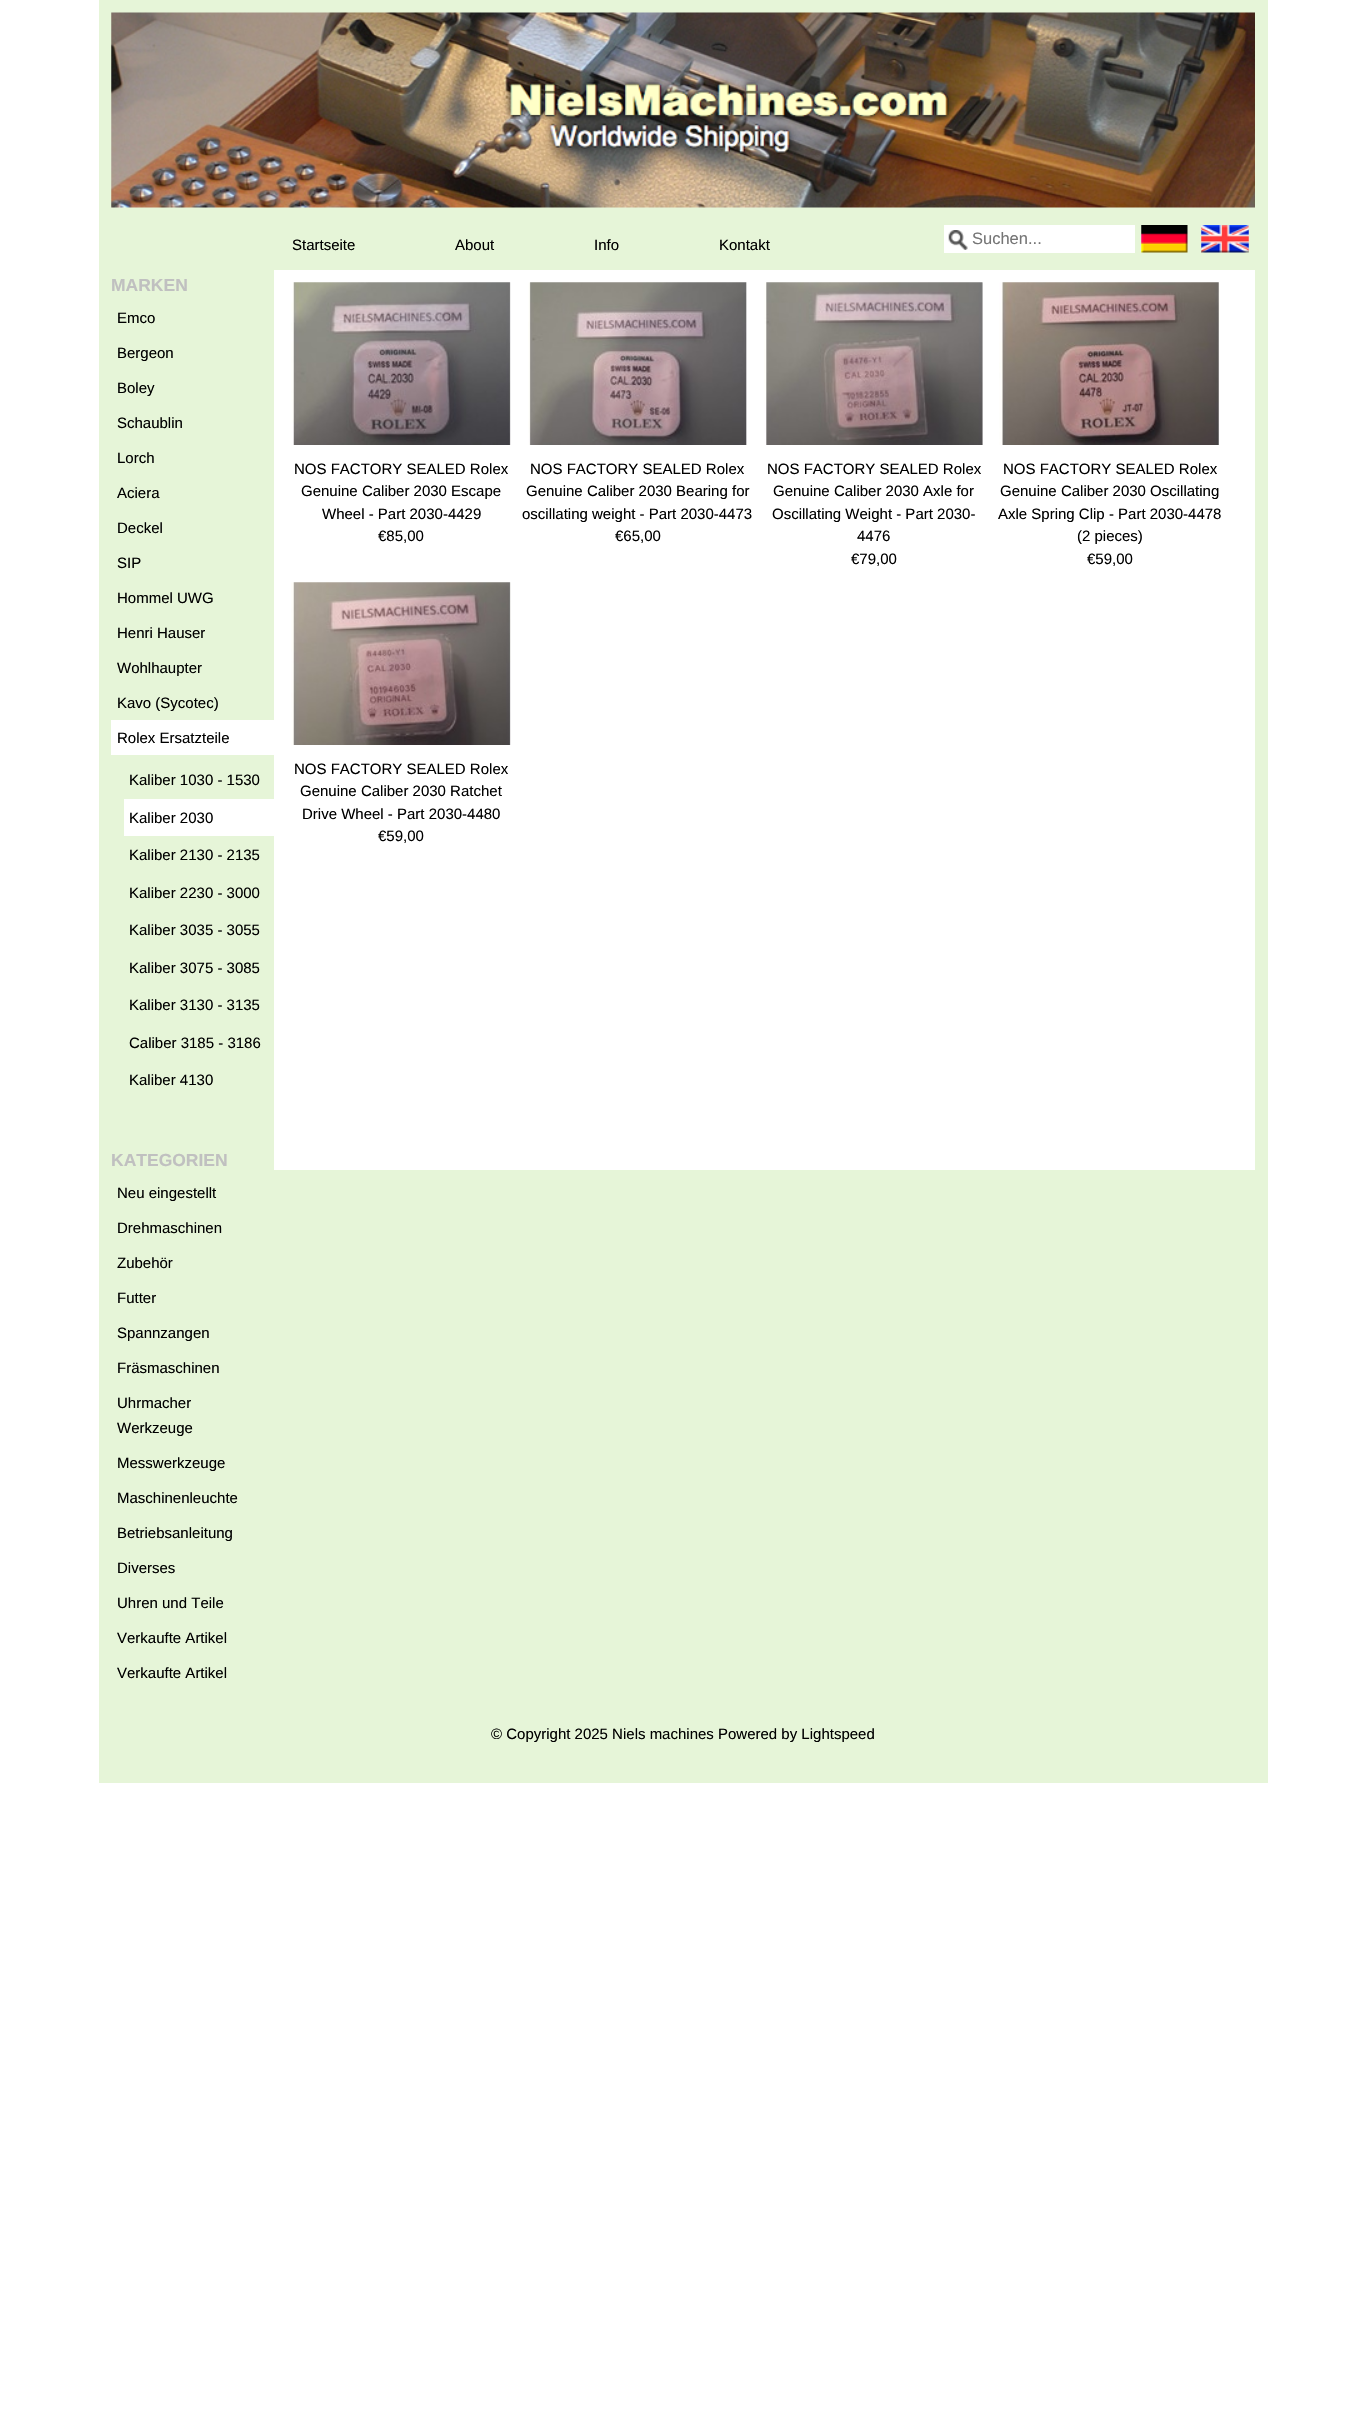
#include "include/core/SkBlurTypes.h"
#include "include/core/SkCanvas.h"
#include "include/core/SkData.h"
#include "include/core/SkFont.h"
#include "include/core/SkFontMgr.h"
#include "include/core/SkImage.h"
#include "include/core/SkMaskFilter.h"
#include "include/core/SkPaint.h"
#include "include/core/SkPathBuilder.h"
#include "include/core/SkTextBlob.h"
#include "include/effects/SkDashPathEffect.h"
#include "include/effects/SkGradientShader.h"
#include "include/utils/SkParsePath.h"

extern sk_sp<SkFontMgr> fontMgr;

static SkFont font(const char* family, int weight, float size, bool italic = false) {
    SkFontStyle style(weight, SkFontStyle::kNormal_Width,
        italic ? SkFontStyle::kItalic_Slant : SkFontStyle::kUpright_Slant);
    SkFont result(fontMgr->matchFamilyStyle(family, style), size);
    result.setSubpixel(true);
    return result;
}

static void drawLabel(SkCanvas* canvas, const char* s, float x, float y, const SkFont& font, SkColor color) {
    SkPaint ink(SkColor4f::FromColor(color));
    ink.setAntiAlias(true);
    canvas->drawString(s, x, y, font, ink);
}

static void fillRect(SkCanvas* canvas, float x, float y, float w, float h, SkColor color) {
    SkPaint ink(SkColor4f::FromColor(color));
    ink.setAntiAlias(true);
    canvas->drawRect(SkRect::MakeXYWH(x, y, w, h), ink);
}

static void drawPhoto(SkCanvas* canvas, const char* path, float x, float y, float w, float h) {
    auto image = SkImages::DeferredFromEncodedData(SkData::MakeFromFileName(path));
    canvas->drawImageRect(image, SkRect::MakeXYWH(x, y, w, h), SkSamplingOptions());
}

void draw(SkCanvas* canvas) {
    SkPaint paint;
    paint.setAntiAlias(true);
    canvas->clear(0xFFFFFFFF);
    fillRect(canvas, 99, 0, 1169, 1783, 0xFFE6F5D8);
    drawPhoto(canvas, "assets/img1.png", 111, 12, 1144, 196);
    SkFont font1 = font("Liberation Sans", 700, 17.5f);
    drawLabel(canvas, "MARKEN", 111, 291, font1, 0xFFC0C0C0);
    SkFont font2 = font("Liberation Sans", 400, 15);
    drawLabel(canvas, "Emco", 117, 323, font2, 0xFF000000);
    drawLabel(canvas, "Bergeon", 117, 358, font2, 0xFF000000);
    drawLabel(canvas, "Boley", 117, 393, font2, 0xFF000000);
    drawLabel(canvas, "Schaublin", 117, 428, font2, 0xFF000000);
    drawLabel(canvas, "Lorch", 117, 463, font2, 0xFF000000);
    drawLabel(canvas, "Aciera", 117, 498, font2, 0xFF000000);
    drawLabel(canvas, "Deckel", 117, 533, font2, 0xFF000000);
    drawLabel(canvas, "SIP", 117, 568, font2, 0xFF000000);
    drawLabel(canvas, "Hommel UWG", 117, 603, font2, 0xFF000000);
    drawLabel(canvas, "Henri Hauser", 117, 638, font2, 0xFF000000);
    drawLabel(canvas, "Wohlhaupter", 117, 673, font2, 0xFF000000);
    drawLabel(canvas, "Kavo (Sycotec)", 117, 708, font2, 0xFF000000);
    fillRect(canvas, 111, 720, 163, 35, 0xFFFFFFFF);
    drawLabel(canvas, "Rolex Ersatzteile", 117, 743, font2, 0xFF000000);
    drawLabel(canvas, "Kaliber 1030 - 1530", 129, 785, font2, 0xFF000000);
    fillRect(canvas, 124, 799, 150, 37, 0xFFFFFFFF);
    drawLabel(canvas, "Kaliber 2030", 129, 823, font2, 0xFF000000);
    drawLabel(canvas, "Kaliber 2130 - 2135", 129, 860, font2, 0xFF000000);
    drawLabel(canvas, "Kaliber 2230 - 3000", 129, 898, font2, 0xFF000000);
    drawLabel(canvas, "Kaliber 3035 - 3055", 129, 935, font2, 0xFF000000);
    drawLabel(canvas, "Kaliber 3075 - 3085", 129, 973, font2, 0xFF000000);
    drawLabel(canvas, "Kaliber 3130 - 3135", 129, 1010, font2, 0xFF000000);
    drawLabel(canvas, "Caliber 3185 - 3186", 129, 1048, font2, 0xFF000000);
    drawLabel(canvas, "Kaliber 4130", 129, 1085, font2, 0xFF000000);
    drawLabel(canvas, "KATEGORIEN", 111, 1166, font1, 0xFFC0C0C0);
    drawLabel(canvas, "Neu eingestellt", 117, 1198, font2, 0xFF000000);
    drawLabel(canvas, "Drehmaschinen", 117, 1233, font2, 0xFF000000);
    drawLabel(canvas, "Zubehör", 117, 1268, font2, 0xFF000000);
    drawLabel(canvas, "Futter", 117, 1303, font2, 0xFF000000);
    drawLabel(canvas, "Spannzangen", 117, 1338, font2, 0xFF000000);
    drawLabel(canvas, "Fräsmaschinen", 117, 1373, font2, 0xFF000000);
    drawLabel(canvas, "Uhrmacher", 117, 1408, font2, 0xFF000000);
    drawLabel(canvas, "Werkzeuge", 117, 1433, font2, 0xFF000000);
    drawLabel(canvas, "Messwerkzeuge", 117, 1468, font2, 0xFF000000);
    drawLabel(canvas, "Maschinenleuchte", 117, 1503, font2, 0xFF000000);
    drawLabel(canvas, "Betriebsanleitung", 117, 1538, font2, 0xFF000000);
    drawLabel(canvas, "Diverses", 117, 1573, font2, 0xFF000000);
    drawLabel(canvas, "Uhren und Teile", 117, 1608, font2, 0xFF000000);
    drawLabel(canvas, "Verkaufte Artikel", 117, 1643, font2, 0xFF000000);
    drawLabel(canvas, "Verkaufte Artikel", 117, 1678, font2, 0xFF000000);
    drawLabel(canvas, "Startseite", 292, 250, font2, 0xFF000000);
    drawLabel(canvas, "About", 455, 250, font2, 0xFF000000);
    drawLabel(canvas, "Info", 594, 250, font2, 0xFF000000);
    drawLabel(canvas, "Kontakt", 719, 250, font2, 0xFF000000);
    fillRect(canvas, 944, 225, 191, 28, 0xFFFFFFFF);
    drawPhoto(canvas, "assets/img2.png", 948, 230, 20, 20);
    SkFont font3 = font("Liberation Sans", 400, 16.5f);
    drawLabel(canvas, "Suchen...", 972, 244, font3, 0xFF757575);
    drawPhoto(canvas, "assets/img3.png", 1141, 225, 47, 28);
    drawPhoto(canvas, "assets/img4.png", 1201, 225, 48, 28);
    fillRect(canvas, 274, 270, 981, 900, 0xFFFFFFFF);
    drawPhoto(canvas, "assets/img5.png", 291, 282, 220, 163);
    drawPhoto(canvas, "assets/img6.png", 293, 282, 218, 1);
    drawLabel(canvas, "NOS FACTORY SEALED Rolex", 294, 474, font2, 0xFF000000);
    drawLabel(canvas, "Genuine Caliber 2030 Escape", 301, 496, font2, 0xFF000000);
    drawLabel(canvas, "Wheel - Part 2030-4429", 322, 519, font2, 0xFF000000);
    drawLabel(canvas, "€85,00", 378, 541, font2, 0xFF000000);
    drawPhoto(canvas, "assets/img7.png", 528, 282, 219, 163);
    drawPhoto(canvas, "assets/img8.png", 530, 282, 217, 1);
    drawLabel(canvas, "NOS FACTORY SEALED Rolex", 530, 474, font2, 0xFF000000);
    drawLabel(canvas, "Genuine Caliber 2030 Bearing for", 526, 496, font2, 0xFF000000);
    drawLabel(canvas, "oscillating weight - Part 2030-4473", 522, 519, font2, 0xFF000000);
    drawLabel(canvas, "€65,00", 615, 541, font2, 0xFF000000);
    drawPhoto(canvas, "assets/img9.png", 764, 282, 219, 163);
    drawPhoto(canvas, "assets/img10.png", 766, 282, 217, 1);
    drawLabel(canvas, "NOS FACTORY SEALED Rolex", 767, 474, font2, 0xFF000000);
    drawLabel(canvas, "Genuine Caliber 2030 Axle for", 773, 496, font2, 0xFF000000);
    drawLabel(canvas, "Oscillating Weight - Part 2030-", 772, 519, font2, 0xFF000000);
    drawLabel(canvas, "4476", 857, 541, font2, 0xFF000000);
    drawLabel(canvas, "€79,00", 851, 564, font2, 0xFF000000);
    drawPhoto(canvas, "assets/img11.png", 999, 282, 221, 163);
    drawPhoto(canvas, "assets/img12.png", 1002, 282, 217, 1);
    drawLabel(canvas, "NOS FACTORY SEALED Rolex", 1003, 474, font2, 0xFF000000);
    drawLabel(canvas, "Genuine Caliber 2030 Oscillating", 1000, 496, font2, 0xFF000000);
    drawLabel(canvas, "Axle Spring Clip - Part 2030-4478", 998, 519, font2, 0xFF000000);
    drawLabel(canvas, "(2 pieces)", 1077, 541, font2, 0xFF000000);
    drawLabel(canvas, "€59,00", 1087, 564, font2, 0xFF000000);
    drawPhoto(canvas, "assets/img13.png", 291, 582, 220, 163);
    drawPhoto(canvas, "assets/img14.png", 293, 582, 218, 1);
    drawLabel(canvas, "NOS FACTORY SEALED Rolex", 294, 774, font2, 0xFF000000);
    drawLabel(canvas, "Genuine Caliber 2030 Ratchet", 300, 796, font2, 0xFF000000);
    drawLabel(canvas, "Drive Wheel - Part 2030-4480", 302, 819, font2, 0xFF000000);
    drawLabel(canvas, "€59,00", 378, 841, font2, 0xFF000000);
    drawLabel(canvas, "© Copyright 2025 Niels machines Powered by Lightspeed", 491, 1739, font2, 0xFF000000);
}
